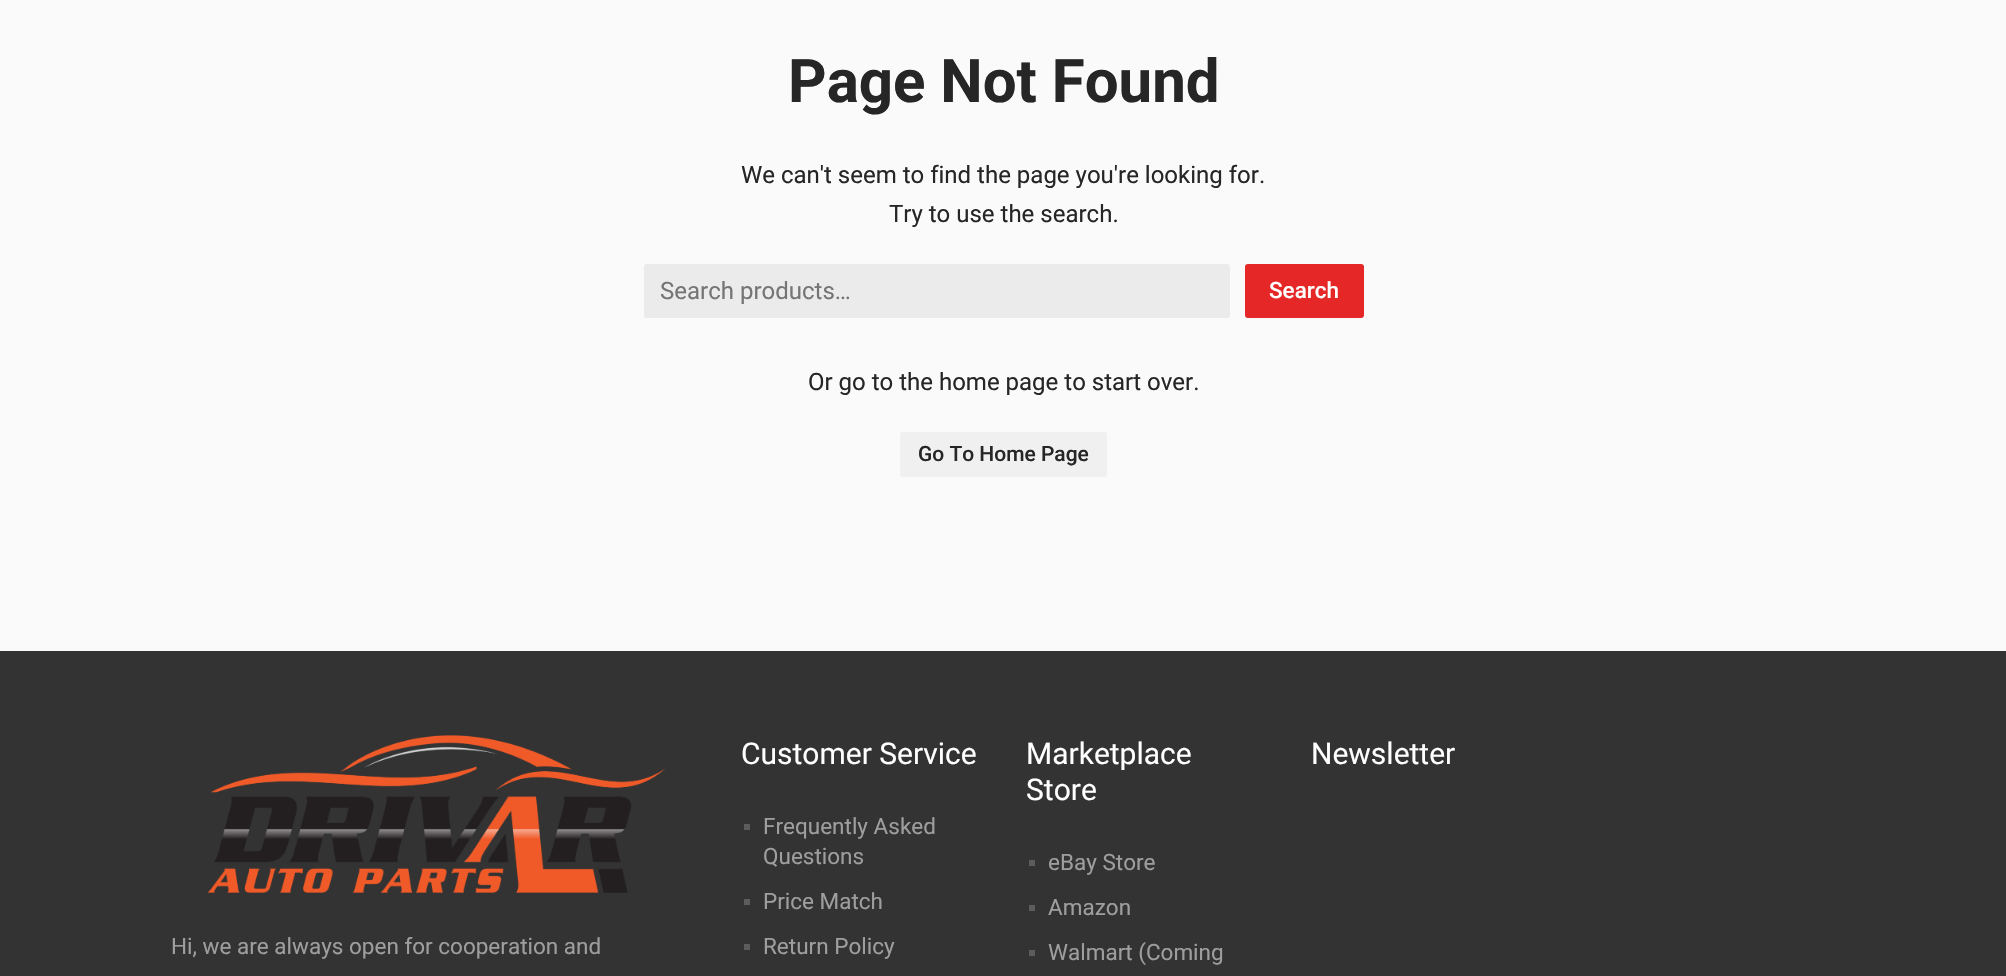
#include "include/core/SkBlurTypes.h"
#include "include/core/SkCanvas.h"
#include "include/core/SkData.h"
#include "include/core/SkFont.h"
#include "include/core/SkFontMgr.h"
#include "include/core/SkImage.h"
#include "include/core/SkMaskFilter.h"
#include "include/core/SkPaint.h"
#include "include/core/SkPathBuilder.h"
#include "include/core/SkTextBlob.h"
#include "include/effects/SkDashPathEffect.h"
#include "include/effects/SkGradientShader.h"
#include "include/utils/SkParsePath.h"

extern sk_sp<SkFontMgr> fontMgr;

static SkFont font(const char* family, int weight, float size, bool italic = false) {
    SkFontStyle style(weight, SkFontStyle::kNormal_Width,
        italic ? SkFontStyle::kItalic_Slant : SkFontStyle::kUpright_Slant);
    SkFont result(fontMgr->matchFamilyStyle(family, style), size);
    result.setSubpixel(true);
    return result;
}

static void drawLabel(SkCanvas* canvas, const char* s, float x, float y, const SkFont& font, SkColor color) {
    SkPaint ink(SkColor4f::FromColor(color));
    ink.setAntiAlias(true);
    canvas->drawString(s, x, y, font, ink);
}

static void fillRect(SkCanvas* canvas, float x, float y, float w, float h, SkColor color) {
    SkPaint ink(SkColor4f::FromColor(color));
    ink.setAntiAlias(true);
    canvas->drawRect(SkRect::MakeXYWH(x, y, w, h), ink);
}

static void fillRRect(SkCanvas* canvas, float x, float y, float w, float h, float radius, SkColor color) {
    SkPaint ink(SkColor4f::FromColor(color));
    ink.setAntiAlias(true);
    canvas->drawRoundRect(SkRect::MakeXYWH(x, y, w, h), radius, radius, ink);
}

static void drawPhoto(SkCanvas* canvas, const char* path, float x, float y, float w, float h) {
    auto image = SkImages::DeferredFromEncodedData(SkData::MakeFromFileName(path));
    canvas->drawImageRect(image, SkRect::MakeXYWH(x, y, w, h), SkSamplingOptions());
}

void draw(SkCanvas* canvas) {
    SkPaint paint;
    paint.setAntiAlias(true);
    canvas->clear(0xFFFAFAFA);
    SkFont font1 = font("Roboto", 700, 60);
    drawLabel(canvas, "Page Not Found", 788, 102, font1, 0xFF262626);
    SkFont font2 = font("Roboto", 400, 24);
    drawLabel(canvas, "We can't seem to find the page you're looking for.", 741, 183, font2, 0xFF262626);
    drawLabel(canvas, "Try to use the search.", 889, 222, font2, 0xFF262626);
    paint.setColor(0xFFEBEBEB);
    canvas->drawRoundRect(SkRect::MakeXYWH(645, 265, 584, 52), 2, 2, paint);
    paint.setStroke(true);
    paint.setStrokeWidth(2);
    canvas->drawRoundRect(SkRect::MakeXYWH(645, 265, 584, 52), 2, 2, paint);
    drawLabel(canvas, "Search products…", 660, 299, font2, 0xFF757575);
    fillRRect(canvas, 1245, 264, 119, 54, 3, 0xFFE52727);
    SkFont font3 = font("Roboto", 500, 22.5f);
    drawLabel(canvas, "Search", 1269, 298, font3, 0xFFFFFFFF);
    drawLabel(canvas, "Or go to the home page to start over.", 808, 390, font2, 0xFF262626);
    fillRRect(canvas, 900, 432, 207, 45, 3, 0xFFF0F0F0);
    SkFont font4 = font("Roboto", 500, 21);
    drawLabel(canvas, "Go To Home Page", 918, 461, font4, 0xFF262626);
    fillRect(canvas, 0, 651, 2006, 325, 0xFF333333);
    SkFont font5 = font("Roboto", 400, 30);
    drawLabel(canvas, "Customer Service", 741, 764, font5, 0xFFFFFFFF);
    fillRect(canvas, 744, 824, 6, 6, 0xFF5C5C5C);
    SkFont font6 = font("Roboto", 400, 22.5f);
    drawLabel(canvas, "Frequently Asked", 763, 834, font6, 0xFF9E9E9E);
    drawLabel(canvas, "Questions", 763, 864, font6, 0xFF9E9E9E);
    fillRect(canvas, 744, 899, 6, 6, 0xFF5C5C5C);
    drawLabel(canvas, "Price Match", 763, 909, font6, 0xFF9E9E9E);
    fillRect(canvas, 744, 944, 6, 6, 0xFF5C5C5C);
    drawLabel(canvas, "Return Policy", 763, 954, font6, 0xFF9E9E9E);
    drawLabel(canvas, "Marketplace", 1026, 764, font5, 0xFFFFFFFF);
    drawLabel(canvas, "Store", 1026, 800, font5, 0xFFFFFFFF);
    fillRect(canvas, 1029, 860, 6, 6, 0xFF5C5C5C);
    drawLabel(canvas, "eBay Store", 1048, 870, font6, 0xFF9E9E9E);
    fillRect(canvas, 1029, 905, 6, 6, 0xFF5C5C5C);
    drawLabel(canvas, "Amazon", 1048, 915, font6, 0xFF9E9E9E);
    fillRect(canvas, 1029, 950, 6, 6, 0xFF5C5C5C);
    drawLabel(canvas, "Walmart (Coming", 1048, 960, font6, 0xFF9E9E9E);
    drawLabel(canvas, "Newsletter", 1311, 764, font5, 0xFFFFFFFF);
    drawPhoto(canvas, "assets/img1.png", 207, 735, 459, 158);
    drawLabel(canvas, "Hi, we are always open for cooperation and", 171, 954, font6, 0xFF9E9E9E);
}
